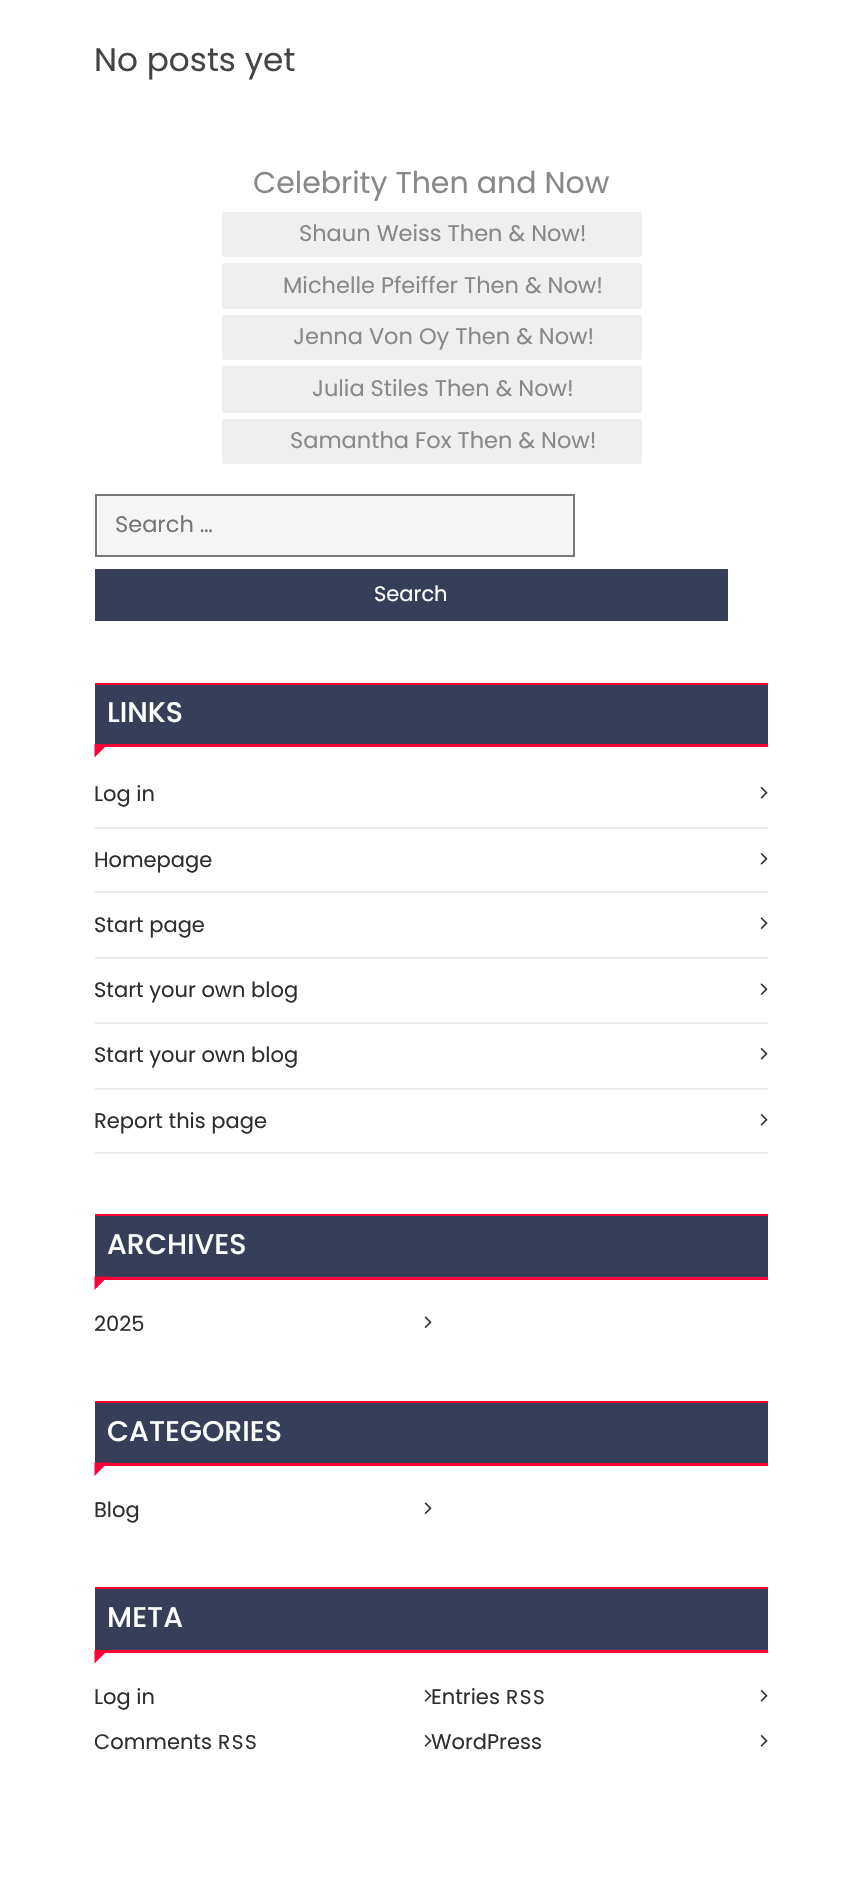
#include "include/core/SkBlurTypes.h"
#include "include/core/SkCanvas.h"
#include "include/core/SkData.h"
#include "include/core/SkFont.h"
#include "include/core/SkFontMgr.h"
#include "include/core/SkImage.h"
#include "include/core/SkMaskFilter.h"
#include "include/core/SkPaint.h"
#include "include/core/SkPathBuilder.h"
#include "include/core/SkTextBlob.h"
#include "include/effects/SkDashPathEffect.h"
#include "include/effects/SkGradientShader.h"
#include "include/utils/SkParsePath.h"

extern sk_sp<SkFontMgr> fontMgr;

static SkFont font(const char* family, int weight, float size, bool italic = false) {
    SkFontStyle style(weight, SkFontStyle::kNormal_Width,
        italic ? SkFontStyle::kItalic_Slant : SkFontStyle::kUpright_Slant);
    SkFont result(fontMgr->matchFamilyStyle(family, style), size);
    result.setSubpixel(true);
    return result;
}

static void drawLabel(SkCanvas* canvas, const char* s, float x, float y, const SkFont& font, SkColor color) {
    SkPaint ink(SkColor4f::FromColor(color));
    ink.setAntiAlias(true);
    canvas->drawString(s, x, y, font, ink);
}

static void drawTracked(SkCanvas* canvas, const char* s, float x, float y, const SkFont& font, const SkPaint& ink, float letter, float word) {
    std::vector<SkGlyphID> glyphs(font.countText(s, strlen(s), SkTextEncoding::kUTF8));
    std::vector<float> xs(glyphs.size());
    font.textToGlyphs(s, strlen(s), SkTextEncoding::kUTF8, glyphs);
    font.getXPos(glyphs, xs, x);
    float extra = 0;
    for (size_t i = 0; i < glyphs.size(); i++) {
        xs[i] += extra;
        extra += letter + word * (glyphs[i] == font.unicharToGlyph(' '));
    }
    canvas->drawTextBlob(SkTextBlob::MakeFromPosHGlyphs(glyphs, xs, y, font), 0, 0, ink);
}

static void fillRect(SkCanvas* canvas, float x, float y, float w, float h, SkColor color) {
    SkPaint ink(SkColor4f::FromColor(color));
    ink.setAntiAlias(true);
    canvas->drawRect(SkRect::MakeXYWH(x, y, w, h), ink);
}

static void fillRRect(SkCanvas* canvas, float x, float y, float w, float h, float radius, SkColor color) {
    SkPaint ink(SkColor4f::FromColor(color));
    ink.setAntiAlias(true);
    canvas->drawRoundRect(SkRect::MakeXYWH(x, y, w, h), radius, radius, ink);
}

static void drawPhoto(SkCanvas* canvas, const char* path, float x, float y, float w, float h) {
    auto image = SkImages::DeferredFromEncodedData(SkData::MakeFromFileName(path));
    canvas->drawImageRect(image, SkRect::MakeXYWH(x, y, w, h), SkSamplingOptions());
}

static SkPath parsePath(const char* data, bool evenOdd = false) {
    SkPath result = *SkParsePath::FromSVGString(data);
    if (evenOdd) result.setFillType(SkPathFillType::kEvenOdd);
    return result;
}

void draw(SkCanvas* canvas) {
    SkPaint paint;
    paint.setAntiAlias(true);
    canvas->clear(0xFFFFFFFF);
    SkFont font1 = font("Poppins", 400, 32.75f);
    drawLabel(canvas, "No posts yet", 94, 71, font1, 0xFF444444);
    SkFont font2 = font("Poppins", 400, 30);
    drawLabel(canvas, "Celebrity Then and Now", 253, 193, font2, 0xFF888888);
    fillRRect(canvas, 222, 212, 420, 45, 3, 0xFFEFEFEF);
    SkFont font3 = font("Poppins", 400, 22.5f);
    drawLabel(canvas, "Shaun Weiss Then & Now!", 299, 241, font3, 0xFF888888);
    fillRRect(canvas, 222, 263, 420, 46, 3, 0xFFEFEFEF);
    drawLabel(canvas, "Michelle Pfeiffer Then & Now!", 283, 293, font3, 0xFF888888);
    fillRRect(canvas, 222, 315, 420, 45, 3, 0xFFEFEFEF);
    drawLabel(canvas, "Jenna Von Oy Then & Now!", 293, 344, font3, 0xFF888888);
    fillRRect(canvas, 222, 366, 420, 47, 3, 0xFFEFEFEF);
    drawLabel(canvas, "Julia Stiles Then & Now!", 312, 396, font3, 0xFF888888);
    fillRRect(canvas, 222, 419, 420, 45, 3, 0xFFEFEFEF);
    drawLabel(canvas, "Samantha Fox Then & Now!", 290, 448, font3, 0xFF888888);
    paint.setColor(0xFFF5F5F5);
    canvas->drawRect(SkRect::MakeXYWH(96, 495, 478, 61), paint);
    paint.setStroke(true);
    paint.setStrokeWidth(2);
    paint.setColor(0xFF777777);
    canvas->drawRect(SkRect::MakeXYWH(96, 495, 478, 61), paint);
    drawLabel(canvas, "Search …", 115, 532, font3, 0xFF757575);
    fillRect(canvas, 95, 569, 633, 52, 0xFF373E59);
    SkFont font4 = font("Poppins", 400, 21);
    drawLabel(canvas, "Search", 374, 601, font4, 0xFFFFFFFF);
    fillRect(canvas, 95, 685, 673, 59, 0xFF373E59);
    fillRect(canvas, 95, 683, 673, 2, 0xFFFF0036);
    fillRect(canvas, 105, 744, 663, 3, 0xFFFF0036);
    SkFont font5 = font("Poppins", 500, 28.5f);
    drawLabel(canvas, "LINKS", 107, 722, font5, 0xFFFFFFFF);
    paint.setStroke(false);
    paint.setColor(0xFFFF0036);
    canvas->drawPath(parsePath("M94.5 744H108L94.5 757.5Z"), paint);
    fillRect(canvas, 95, 827, 673, 2, 0xFFE9E9E9);
    drawLabel(canvas, "Log in", 94, 801, font4, 0xFF2E2E2E);
    drawPhoto(canvas, "assets/img1.png", 760, 787, 8, 12);
    fillRect(canvas, 95, 891, 673, 2, 0xFFE9E9E9);
    drawLabel(canvas, "Homepage", 94, 867, font4, 0xFF2E2E2E);
    drawPhoto(canvas, "assets/img1.png", 760, 853, 8, 12);
    fillRect(canvas, 95, 957, 673, 2, 0xFFE9E9E9);
    drawLabel(canvas, "Start page", 94, 932, font4, 0xFF2E2E2E);
    drawPhoto(canvas, "assets/img2.png", 760, 917, 8, 12);
    fillRect(canvas, 95, 1022, 673, 2, 0xFFE9E9E9);
    drawLabel(canvas, "Start your own blog", 94, 997, font4, 0xFF2E2E2E);
    drawPhoto(canvas, "assets/img2.png", 760, 983, 8, 12);
    fillRect(canvas, 95, 1088, 673, 2, 0xFFE9E9E9);
    drawLabel(canvas, "Start your own blog", 94, 1062, font4, 0xFF2E2E2E);
    drawPhoto(canvas, "assets/img1.png", 760, 1048, 8, 12);
    fillRect(canvas, 95, 1152, 673, 2, 0xFFE9E9E9);
    drawLabel(canvas, "Report this page", 94, 1128, font4, 0xFF2E2E2E);
    drawPhoto(canvas, "assets/img1.png", 760, 1114, 8, 12);
    fillRect(canvas, 95, 1216, 673, 61, 0xFF373E59);
    fillRect(canvas, 95, 1214, 673, 2, 0xFFFF0036);
    fillRect(canvas, 104, 1277, 664, 3, 0xFFFF0036);
    drawLabel(canvas, "ARCHIVES", 107, 1254, font5, 0xFFFFFFFF);
    canvas->drawPath(parsePath("M94.5 1276.5H108L94.5 1290Z"), paint);
    drawLabel(canvas, "2025", 94, 1331, font4, 0xFF2E2E2E);
    drawPhoto(canvas, "assets/img2.png", 424, 1316, 8, 12);
    fillRect(canvas, 95, 1403, 673, 60, 0xFF373E59);
    fillRect(canvas, 95, 1401, 673, 2, 0xFFFF0036);
    fillRect(canvas, 104, 1463, 664, 3, 0xFFFF0036);
    drawLabel(canvas, "CATEGORIES", 107, 1441, font5, 0xFFFFFFFF);
    canvas->drawPath(parsePath("M94.5 1462.5H108L94.5 1476Z"), paint);
    drawLabel(canvas, "Blog", 94, 1517, font4, 0xFF2E2E2E);
    drawPhoto(canvas, "assets/img2.png", 424, 1502, 8, 12);
    fillRect(canvas, 95, 1589, 673, 61, 0xFF373E59);
    fillRect(canvas, 95, 1587, 673, 2, 0xFFFF0036);
    fillRect(canvas, 105, 1650, 663, 3, 0xFFFF0036);
    drawLabel(canvas, "META", 107, 1627, font5, 0xFFFFFFFF);
    canvas->drawPath(parsePath("M94.5 1650H108L94.5 1663.5Z"), paint);
    drawLabel(canvas, "Log in", 94, 1704, font4, 0xFF2E2E2E);
    drawPhoto(canvas, "assets/img1.png", 424, 1690, 8, 12);
    drawLabel(canvas, "Entries", 431, 1704, font4, 0xFF2E2E2E);
    SkFont font6 = font("Poppins", 400, 20);
    paint.setColor(0xFF2E2E2E);
    drawTracked(canvas, "RSS", 506, 1704, font6, paint, 1.5f, 0);
    drawPhoto(canvas, "assets/img1.png", 760, 1690, 8, 12);
    drawLabel(canvas, "Comments", 94, 1749, font4, 0xFF2E2E2E);
    drawTracked(canvas, "RSS", 218, 1749, font6, paint, 1.5f, 0);
    drawPhoto(canvas, "assets/img1.png", 424, 1735, 8, 12);
    drawLabel(canvas, "WordPress", 431, 1749, font4, 0xFF2E2E2E);
    drawPhoto(canvas, "assets/img1.png", 760, 1735, 8, 12);
}
